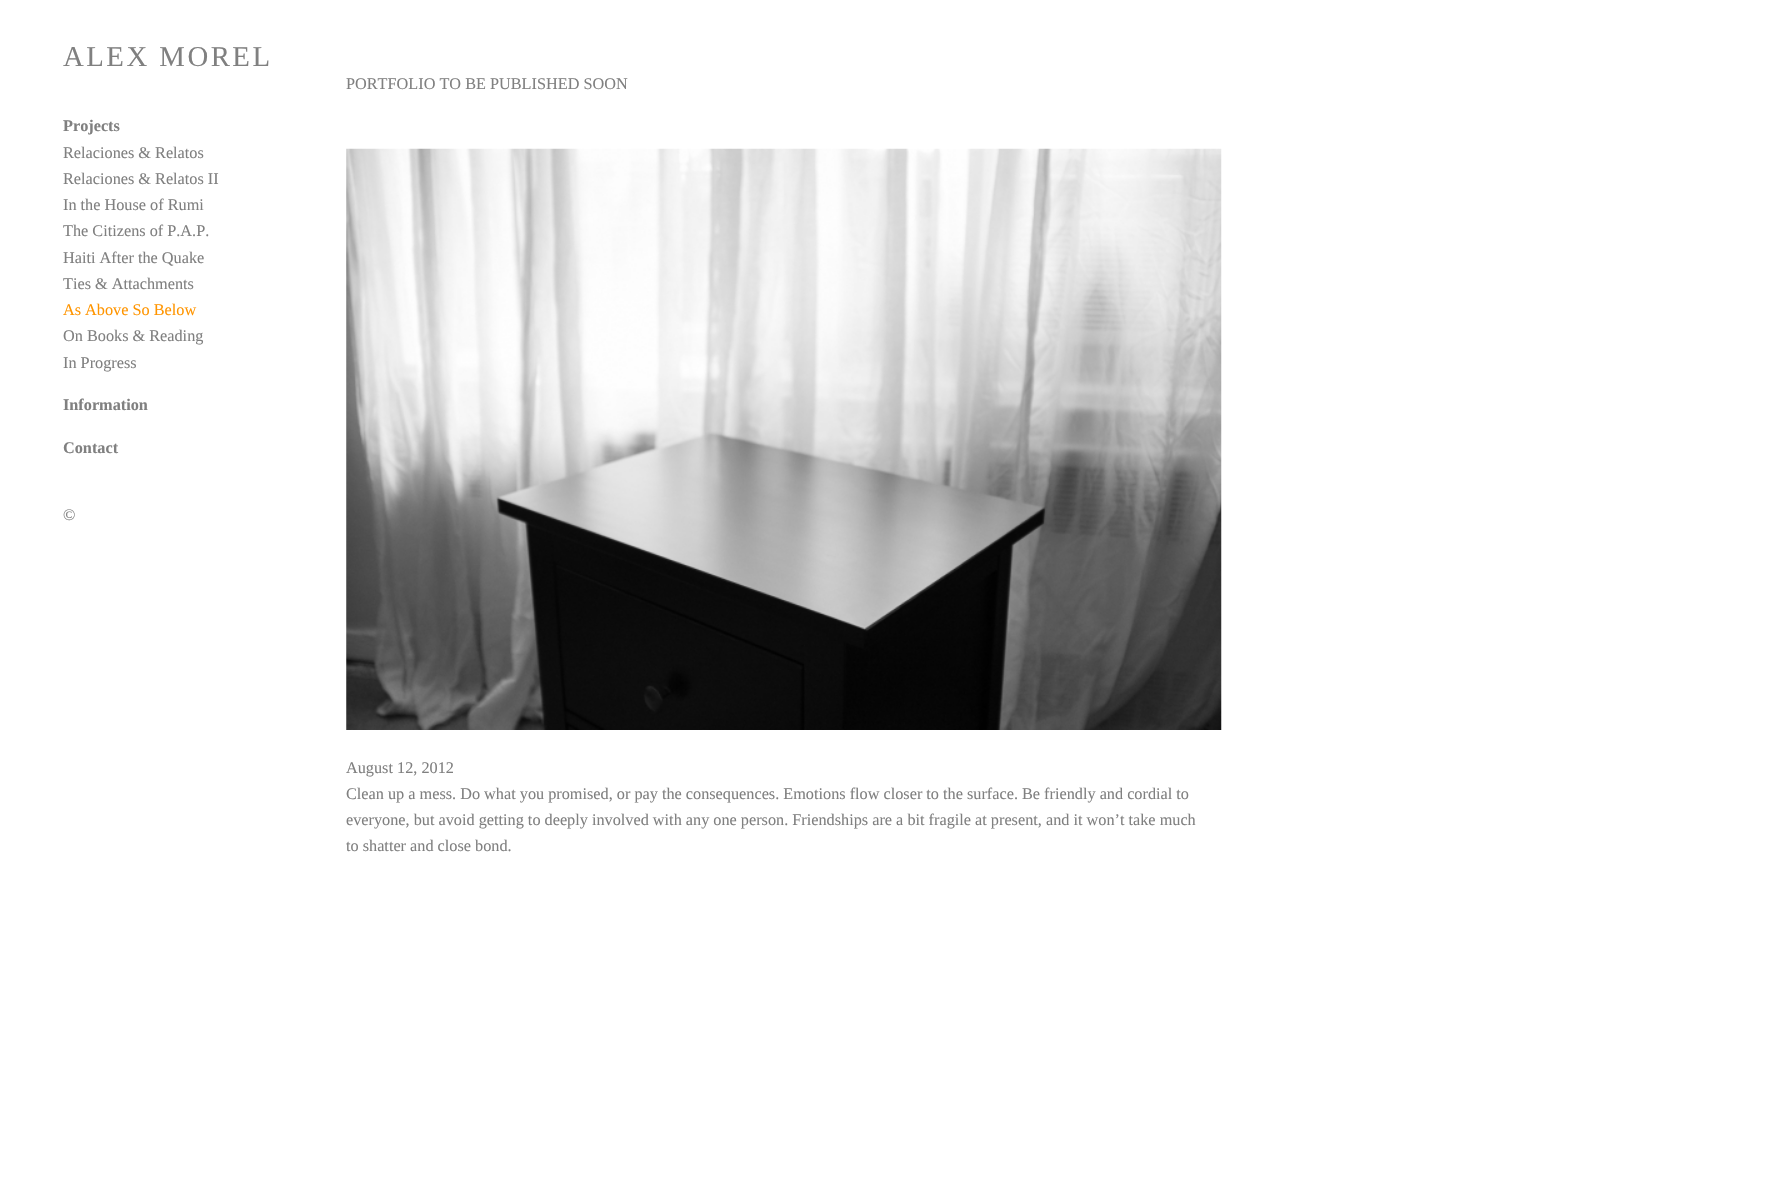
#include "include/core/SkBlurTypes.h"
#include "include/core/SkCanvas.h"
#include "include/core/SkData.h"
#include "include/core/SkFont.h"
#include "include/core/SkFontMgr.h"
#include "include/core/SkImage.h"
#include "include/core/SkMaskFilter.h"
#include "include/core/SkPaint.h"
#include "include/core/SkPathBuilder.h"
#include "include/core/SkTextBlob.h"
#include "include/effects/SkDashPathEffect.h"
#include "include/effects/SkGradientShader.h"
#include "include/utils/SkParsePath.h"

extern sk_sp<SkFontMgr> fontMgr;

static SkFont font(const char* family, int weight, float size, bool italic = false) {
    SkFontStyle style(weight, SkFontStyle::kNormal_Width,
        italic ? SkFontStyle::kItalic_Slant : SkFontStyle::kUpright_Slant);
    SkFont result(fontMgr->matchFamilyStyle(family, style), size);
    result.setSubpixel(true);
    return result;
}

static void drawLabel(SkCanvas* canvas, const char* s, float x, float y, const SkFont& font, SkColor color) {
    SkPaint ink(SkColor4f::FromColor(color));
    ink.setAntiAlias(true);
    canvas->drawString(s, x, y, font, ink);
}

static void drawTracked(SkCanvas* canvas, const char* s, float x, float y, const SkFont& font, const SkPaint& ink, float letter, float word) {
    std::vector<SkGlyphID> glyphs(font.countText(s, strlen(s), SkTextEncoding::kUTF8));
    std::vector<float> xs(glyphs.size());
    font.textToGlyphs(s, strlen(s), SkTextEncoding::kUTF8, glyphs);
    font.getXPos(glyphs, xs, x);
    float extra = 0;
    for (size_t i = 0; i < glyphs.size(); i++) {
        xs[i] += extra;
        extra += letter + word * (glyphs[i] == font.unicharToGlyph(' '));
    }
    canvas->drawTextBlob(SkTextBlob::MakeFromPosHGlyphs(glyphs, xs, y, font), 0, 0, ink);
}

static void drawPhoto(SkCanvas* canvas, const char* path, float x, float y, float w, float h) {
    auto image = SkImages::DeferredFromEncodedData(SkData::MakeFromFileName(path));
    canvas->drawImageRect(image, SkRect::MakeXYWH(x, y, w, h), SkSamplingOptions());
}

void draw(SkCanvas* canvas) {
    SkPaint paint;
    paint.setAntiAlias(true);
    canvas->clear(0xFFFFFFFF);
    SkFont font1 = font("Liberation Serif", 400, 28.75f);
    paint.setColor(0xFF808080);
    drawTracked(canvas, "ALEX MOREL", 63, 66, font1, paint, 2.5f, 0);
    SkFont font2 = font("Liberation Serif", 700, 16.25f);
    drawLabel(canvas, "Projects", 63, 131, font2, 0xFF808080);
    SkFont font3 = font("Liberation Serif", 400, 16.25f);
    drawLabel(canvas, "Relaciones & Relatos", 63, 158, font3, 0xFF808080);
    drawLabel(canvas, "Relaciones & Relatos II", 63, 184, font3, 0xFF808080);
    drawLabel(canvas, "In the House of Rumi", 63, 210, font3, 0xFF808080);
    drawLabel(canvas, "The Citizens of P.A.P.", 63, 236, font3, 0xFF808080);
    drawLabel(canvas, "Haiti After the Quake", 63, 263, font3, 0xFF808080);
    drawLabel(canvas, "Ties & Attachments", 63, 289, font3, 0xFF808080);
    drawLabel(canvas, "As Above So Below", 63, 315, font3, 0xFFFF9500);
    drawLabel(canvas, "On Books & Reading", 63, 341, font3, 0xFF808080);
    drawLabel(canvas, "In Progress", 63, 368, font3, 0xFF808080);
    drawLabel(canvas, "Information", 63, 410, font2, 0xFF808080);
    drawLabel(canvas, "Contact", 63, 453, font2, 0xFF808080);
    drawLabel(canvas, "©", 63, 520, font3, 0xFF808080);
    drawLabel(canvas, "PORTFOLIO TO BE PUBLISHED SOON", 346, 89, font3, 0xFF808080);
    drawPhoto(canvas, "assets/img1.png", 346, 148, 876, 582);
    drawLabel(canvas, "August 12, 2012", 346, 773, font3, 0xFF808080);
    drawLabel(canvas, "Clean up a mess. Do what you promised, or pay the consequences. Emotions flow closer to the surface. Be friendly and cordial to", 346, 799, font3, 0xFF808080);
    drawLabel(canvas, "everyone, but avoid getting to deeply involved with any one person. Friendships are a bit fragile at present, and it won’t take much", 346, 825, font3, 0xFF808080);
    drawLabel(canvas, "to shatter and close bond.", 346, 851, font3, 0xFF808080);
}
